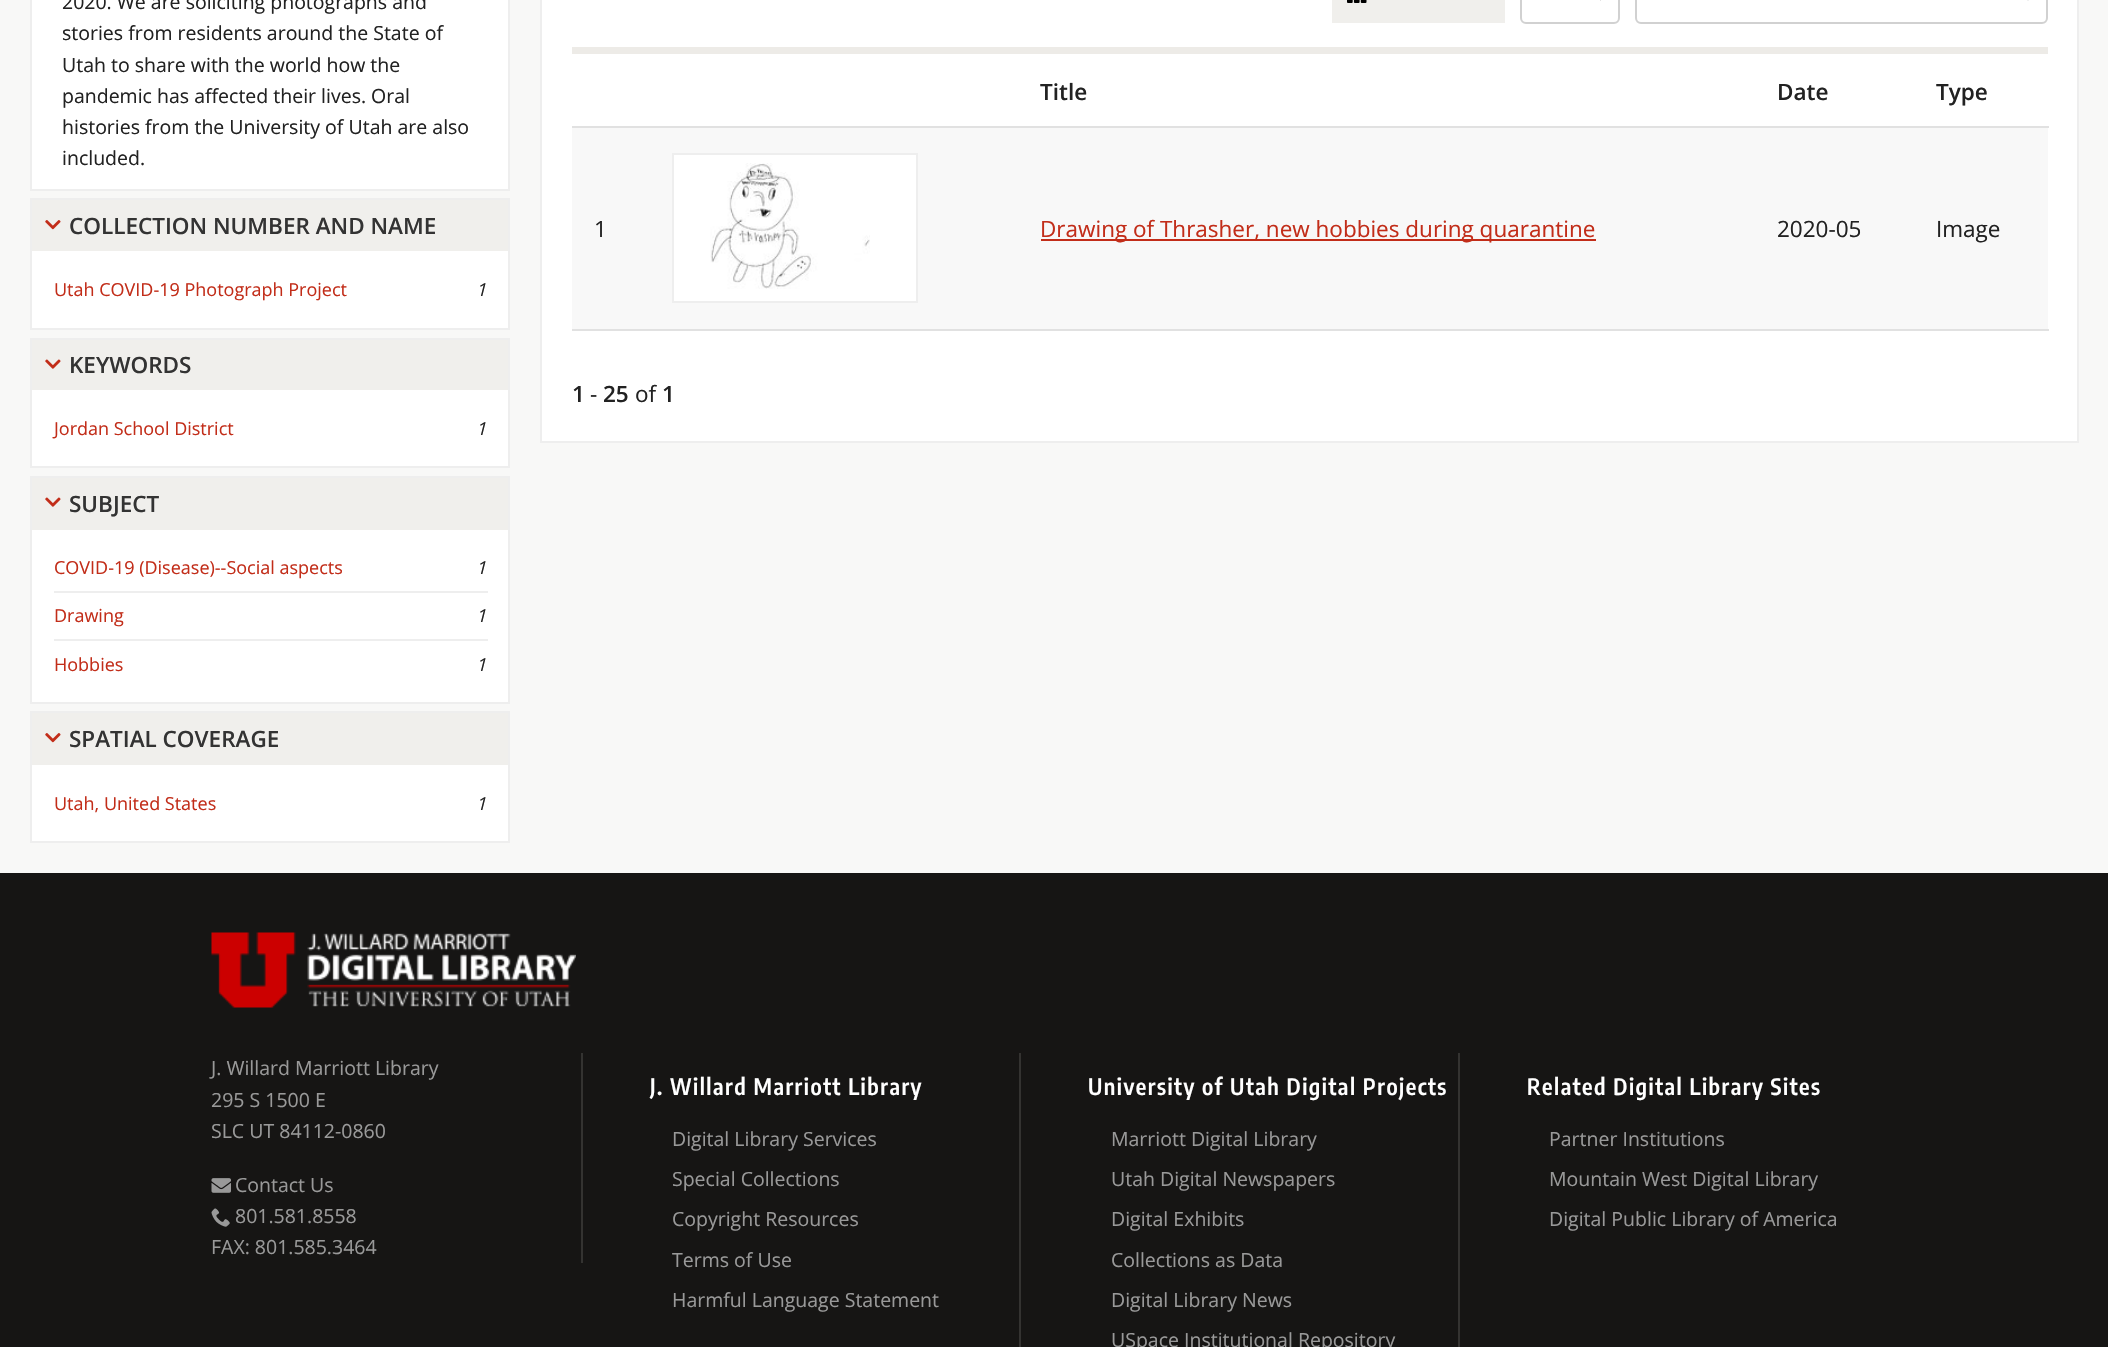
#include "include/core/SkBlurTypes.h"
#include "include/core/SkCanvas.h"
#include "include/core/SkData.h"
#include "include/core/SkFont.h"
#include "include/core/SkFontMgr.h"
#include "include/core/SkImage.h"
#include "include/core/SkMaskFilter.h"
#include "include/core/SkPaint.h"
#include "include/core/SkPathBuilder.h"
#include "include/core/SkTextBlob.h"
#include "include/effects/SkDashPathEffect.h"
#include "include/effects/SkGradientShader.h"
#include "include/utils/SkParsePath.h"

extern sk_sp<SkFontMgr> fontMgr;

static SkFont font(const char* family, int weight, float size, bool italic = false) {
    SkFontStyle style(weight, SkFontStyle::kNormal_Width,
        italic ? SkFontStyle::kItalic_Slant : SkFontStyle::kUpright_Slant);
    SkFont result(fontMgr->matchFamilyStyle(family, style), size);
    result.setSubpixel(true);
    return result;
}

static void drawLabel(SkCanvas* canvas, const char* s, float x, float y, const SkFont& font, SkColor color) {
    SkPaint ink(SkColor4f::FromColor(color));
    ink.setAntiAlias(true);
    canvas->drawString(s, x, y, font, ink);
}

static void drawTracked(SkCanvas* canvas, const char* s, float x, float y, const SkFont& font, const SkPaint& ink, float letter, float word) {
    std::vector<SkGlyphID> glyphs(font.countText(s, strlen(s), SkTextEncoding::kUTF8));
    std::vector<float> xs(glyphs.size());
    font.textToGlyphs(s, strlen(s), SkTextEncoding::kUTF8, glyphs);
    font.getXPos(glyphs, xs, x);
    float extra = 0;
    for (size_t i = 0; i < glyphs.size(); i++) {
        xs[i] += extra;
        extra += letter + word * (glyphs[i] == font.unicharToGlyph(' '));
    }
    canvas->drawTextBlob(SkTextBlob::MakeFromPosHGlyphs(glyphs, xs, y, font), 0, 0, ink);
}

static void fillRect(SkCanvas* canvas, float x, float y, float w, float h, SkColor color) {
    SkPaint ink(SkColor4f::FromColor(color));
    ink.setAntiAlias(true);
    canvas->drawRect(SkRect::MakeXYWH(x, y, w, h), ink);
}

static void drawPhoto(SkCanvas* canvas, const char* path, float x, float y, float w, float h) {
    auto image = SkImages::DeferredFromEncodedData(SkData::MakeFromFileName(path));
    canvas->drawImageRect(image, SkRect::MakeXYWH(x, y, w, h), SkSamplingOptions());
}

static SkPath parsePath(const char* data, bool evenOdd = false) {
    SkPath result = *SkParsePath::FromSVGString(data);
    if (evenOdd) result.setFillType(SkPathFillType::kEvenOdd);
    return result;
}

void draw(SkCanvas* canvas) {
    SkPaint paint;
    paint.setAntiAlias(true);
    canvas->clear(0xFFF8F8F7);
    paint.setColor(0xFFFFFFFF);
    canvas->drawRect(SkRect::MakeXYWH(31, -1, 478, 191), paint);
    paint.setStroke(true);
    paint.setStrokeWidth(2);
    paint.setColor(0xFFEEEEEE);
    canvas->drawRect(SkRect::MakeXYWH(31, -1, 478, 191), paint);
    SkFont font1 = font("Open Sans", 400, 19.5f);
    drawLabel(canvas, "2020. We are soliciting photographs and", 62, 9, font1, 0xFF222222);
    drawLabel(canvas, "stories from residents around the State of", 62, 40, font1, 0xFF222222);
    drawLabel(canvas, "Utah to share with the world how the", 62, 72, font1, 0xFF222222);
    drawLabel(canvas, "pandemic has affected their lives. Oral", 62, 103, font1, 0xFF222222);
    drawLabel(canvas, "histories from the University of Utah are also", 62, 134, font1, 0xFF222222);
    drawLabel(canvas, "included.", 62, 165, font1, 0xFF222222);
    fillRect(canvas, 32, 251, 476, 77, 0xFFFFFFFF);
    canvas->drawRect(SkRect::MakeXYWH(31, 199, 478, 130), paint);
    fillRect(canvas, 32, 200, 476, 51, 0xFFF0EFEC);
    drawPhoto(canvas, "assets/img1.png", 45, 220, 16, 10);
    SkFont font2 = font("Open Sans", 600, 22.5f);
    drawLabel(canvas, "COLLECTION NUMBER AND NAME", 69, 234, font2, 0xFF333333);
    SkFont font3 = font("Open Sans", 400, 18);
    drawLabel(canvas, "Utah COVID-19 Photograph Project", 54, 296, font3, 0xFFC22D19);
    SkFont font4 = font("Open Sans", 400, 18, true);
    drawLabel(canvas, "1", 476, 296, font4, 0xFF222222);
    fillRect(canvas, 32, 390, 476, 76, 0xFFFFFFFF);
    canvas->drawRect(SkRect::MakeXYWH(31, 339, 478, 128), paint);
    fillRect(canvas, 32, 340, 476, 50, 0xFFF0EFEC);
    drawPhoto(canvas, "assets/img2.png", 45, 359, 16, 10);
    drawLabel(canvas, "KEYWORDS", 69, 373, font2, 0xFF333333);
    drawLabel(canvas, "Jordan School District", 54, 435, font3, 0xFFC22D19);
    drawLabel(canvas, "1", 476, 435, font4, 0xFF222222);
    fillRect(canvas, 32, 530, 476, 172, 0xFFFFFFFF);
    canvas->drawRect(SkRect::MakeXYWH(31, 477, 478, 226), paint);
    fillRect(canvas, 32, 478, 476, 52, 0xFFF0EFEC);
    drawPhoto(canvas, "assets/img2.png", 45, 497, 16, 10);
    drawLabel(canvas, "SUBJECT", 69, 512, font2, 0xFF333333);
    fillRect(canvas, 54, 591, 434, 2, 0xFFEEEEEE);
    drawLabel(canvas, "COVID-19 (Disease)--Social aspects", 54, 574, font3, 0xFFC22D19);
    drawLabel(canvas, "1", 476, 574, font4, 0xFF222222);
    fillRect(canvas, 54, 639, 434, 2, 0xFFEEEEEE);
    drawLabel(canvas, "Drawing", 54, 622, font3, 0xFFC22D19);
    drawLabel(canvas, "1", 476, 622, font4, 0xFF222222);
    drawLabel(canvas, "Hobbies", 54, 671, font3, 0xFFC22D19);
    drawLabel(canvas, "1", 476, 671, font4, 0xFF222222);
    fillRect(canvas, 32, 765, 476, 76, 0xFFFFFFFF);
    canvas->drawRect(SkRect::MakeXYWH(31, 712, 478, 130), paint);
    fillRect(canvas, 32, 713, 476, 52, 0xFFF0EFEC);
    drawPhoto(canvas, "assets/img1.png", 45, 733, 16, 10);
    drawLabel(canvas, "SPATIAL COVERAGE", 69, 747, font2, 0xFF333333);
    drawLabel(canvas, "Utah, United States", 54, 810, font3, 0xFFC22D19);
    drawLabel(canvas, "1", 476, 810, font4, 0xFF222222);
    paint.setStroke(false);
    paint.setColor(0xFFFFFFFF);
    canvas->drawRect(SkRect::MakeXYWH(541, -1, 1537, 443), paint);
    paint.setStroke(true);
    paint.setColor(0xFFEEEEEE);
    canvas->drawRect(SkRect::MakeXYWH(541, -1, 1537, 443), paint);
    fillRect(canvas, 572, 47, 1476, 7, 0xFFEDEBE7);
    fillRect(canvas, 1332, 0, 173, 23, 0xFFF0EFEC);
    drawPhoto(canvas, "assets/img3.png", 1347, 0, 20, 3);
    paint.setStroke(false);
    paint.setColor(0xFF222222);
    canvas->drawPath(parsePath("M1596-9L1600.5 .5L1605-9"), paint);
    paint.setStroke(true);
    paint.setColor(0xFFD1D1D1);
    canvas->drawRoundRect(SkRect::MakeXYWH(1521, -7, 98, 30), 5, 5, paint);
    paint.setStroke(false);
    paint.setColor(0xFF222222);
    canvas->drawPath(parsePath("M2023.5-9L2028 .5L2032.5-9"), paint);
    paint.setStroke(true);
    paint.setColor(0xFFD1D1D1);
    canvas->drawRoundRect(SkRect::MakeXYWH(1636, -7, 411, 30), 5, 5, paint);
    drawLabel(canvas, "Title", 1040, 100, font2, 0xFF222222);
    drawLabel(canvas, "Date", 1777, 100, font2, 0xFF222222);
    fillRect(canvas, 572, 126, 1477, 2, 0xFFE1E1E1);
    drawLabel(canvas, "Type", 1936, 100, font2, 0xFF222222);
    fillRect(canvas, 572, 128, 1476, 201, 0xFFF8F8F8);
    SkFont font5 = font("Open Sans", 400, 22.5f);
    drawLabel(canvas, "1", 594, 237, font5, 0xFF222222);
    paint.setStroke(false);
    paint.setColor(0xFFFFFFFF);
    canvas->drawRect(SkRect::MakeXYWH(673, 154, 244, 148), paint);
    paint.setStroke(true);
    paint.setColor(0xFFEEEEEE);
    canvas->drawRect(SkRect::MakeXYWH(673, 154, 244, 148), paint);
    drawPhoto(canvas, "assets/img4.png", 710, 163, 160, 126);
    fillRect(canvas, 1041, 239, 555, 2, 0xFFC22D19);
    drawLabel(canvas, "Drawing of Thrasher, new hobbies during quarantine", 1040, 237, font5, 0xFFC22D19);
    drawLabel(canvas, "2020-05", 1777, 237, font5, 0xFF222222);
    fillRect(canvas, 572, 329, 1477, 2, 0xFFE1E1E1);
    drawLabel(canvas, "Image", 1936, 237, font5, 0xFF222222);
    drawLabel(canvas, "1", 572, 402, font2, 0xFF222222);
    drawLabel(canvas, "-", 590, 402, font5, 0xFF222222);
    drawLabel(canvas, "25", 603, 402, font2, 0xFF222222);
    drawLabel(canvas, "of", 635, 402, font5, 0xFF222222);
    drawLabel(canvas, "1", 662, 402, font2, 0xFF222222);
    fillRect(canvas, 0, 873, 2108, 474, 0xFF161514);
    drawPhoto(canvas, "assets/img5.png", 211, 932, 365, 76);
    fillRect(canvas, 581, 1053, 2, 210, 0xFF343331);
    drawLabel(canvas, "J. Willard Marriott Library", 211, 1075, font1, 0xFF999999);
    drawLabel(canvas, "295 S 1500 E", 211, 1107, font1, 0xFF999999);
    drawLabel(canvas, "SLC UT 84112-0860", 211, 1138, font1, 0xFF999999);
    drawPhoto(canvas, "assets/img6.png", 211, 1178, 20, 15);
    drawLabel(canvas, "Contact Us", 235, 1192, font1, 0xFF999999);
    drawPhoto(canvas, "assets/img7.png", 211, 1208, 19, 19);
    drawLabel(canvas, "801.581.8558", 235, 1223, font1, 0xFF999999);
    drawLabel(canvas, "FAX: 801.585.3464", 211, 1254, font1, 0xFF999999);
    fillRect(canvas, 1019, 1053, 2, 294, 0xFF343331);
    SkFont font6 = font("Encode Sans Condensed", 600, 22.5f);
    paint.setStroke(false);
    paint.setColor(0xFFFFFFFF);
    drawTracked(canvas, "J. Willard Marriott Library", 650, 1095, font6, paint, 1.5f, 0);
    drawLabel(canvas, "Digital Library Services", 672, 1146, font1, 0xFF999999);
    drawLabel(canvas, "Special Collections", 672, 1186, font1, 0xFF999999);
    drawLabel(canvas, "Copyright Resources", 672, 1226, font1, 0xFF999999);
    drawLabel(canvas, "Terms of Use", 672, 1267, font1, 0xFF999999);
    drawLabel(canvas, "Harmful Language Statement", 672, 1307, font1, 0xFF999999);
    fillRect(canvas, 1458, 1053, 2, 294, 0xFF343331);
    drawTracked(canvas, "University of Utah Digital Projects", 1088, 1095, font6, paint, 1.5f, 0);
    drawLabel(canvas, "Marriott Digital Library", 1111, 1146, font1, 0xFF999999);
    drawLabel(canvas, "Utah Digital Newspapers", 1111, 1186, font1, 0xFF999999);
    drawLabel(canvas, "Digital Exhibits", 1111, 1226, font1, 0xFF999999);
    drawLabel(canvas, "Collections as Data", 1111, 1267, font1, 0xFF999999);
    drawLabel(canvas, "Digital Library News", 1111, 1307, font1, 0xFF999999);
    drawLabel(canvas, "USpace Institutional Repository", 1111, 1347, font1, 0xFF999999);
    drawTracked(canvas, "Related Digital Library Sites", 1527, 1095, font6, paint, 1.5f, 0);
    drawLabel(canvas, "Partner Institutions", 1549, 1146, font1, 0xFF999999);
    drawLabel(canvas, "Mountain West Digital Library", 1549, 1186, font1, 0xFF999999);
    drawLabel(canvas, "Digital Public Library of America", 1549, 1226, font1, 0xFF999999);
}
